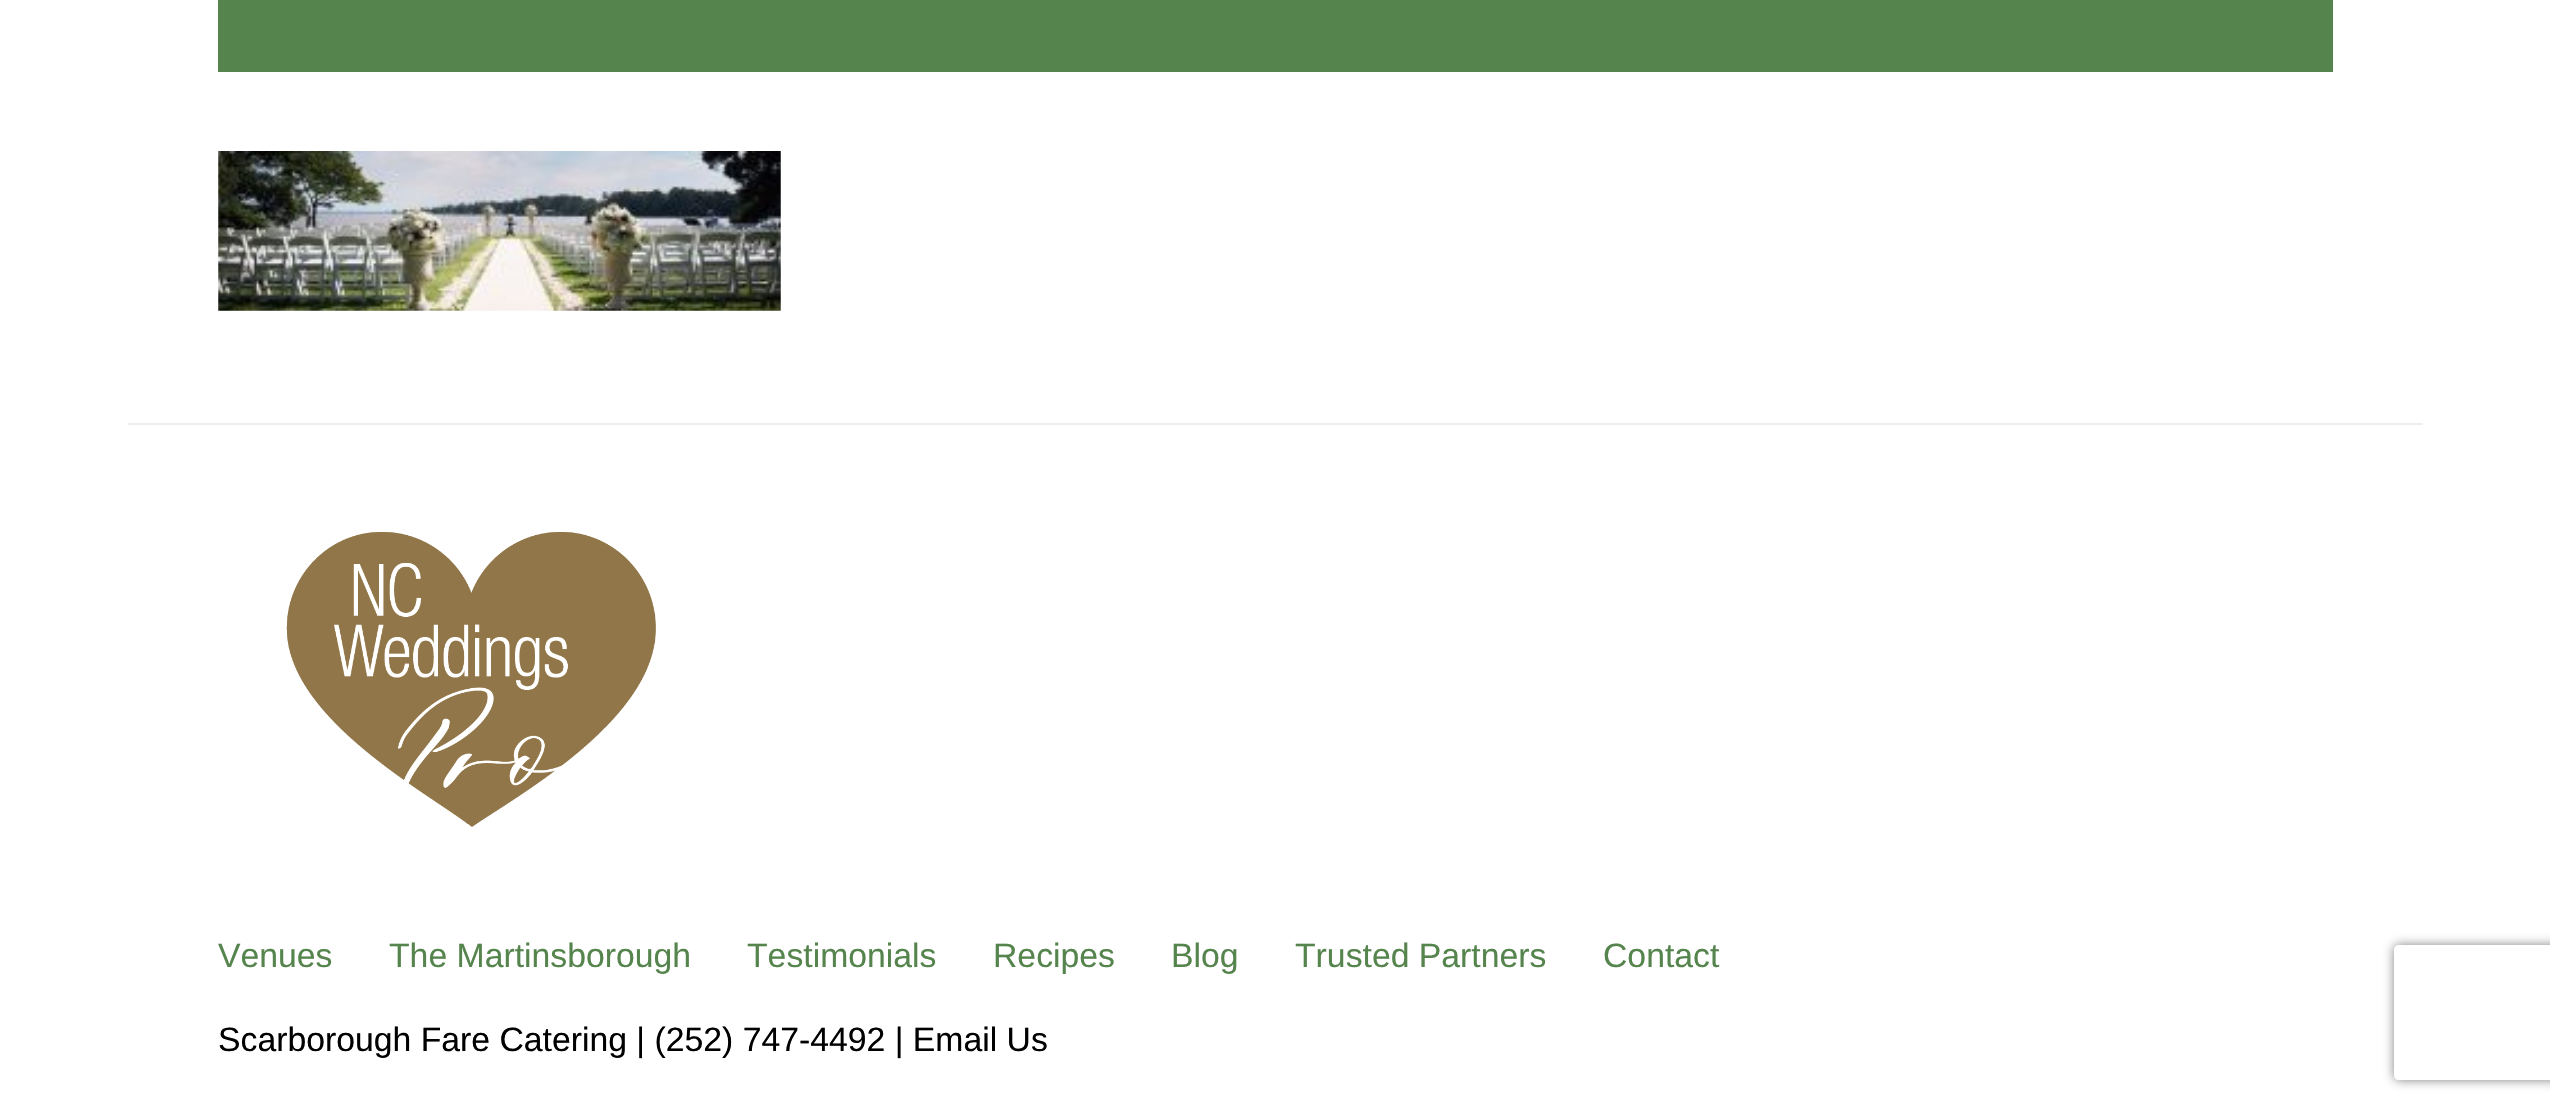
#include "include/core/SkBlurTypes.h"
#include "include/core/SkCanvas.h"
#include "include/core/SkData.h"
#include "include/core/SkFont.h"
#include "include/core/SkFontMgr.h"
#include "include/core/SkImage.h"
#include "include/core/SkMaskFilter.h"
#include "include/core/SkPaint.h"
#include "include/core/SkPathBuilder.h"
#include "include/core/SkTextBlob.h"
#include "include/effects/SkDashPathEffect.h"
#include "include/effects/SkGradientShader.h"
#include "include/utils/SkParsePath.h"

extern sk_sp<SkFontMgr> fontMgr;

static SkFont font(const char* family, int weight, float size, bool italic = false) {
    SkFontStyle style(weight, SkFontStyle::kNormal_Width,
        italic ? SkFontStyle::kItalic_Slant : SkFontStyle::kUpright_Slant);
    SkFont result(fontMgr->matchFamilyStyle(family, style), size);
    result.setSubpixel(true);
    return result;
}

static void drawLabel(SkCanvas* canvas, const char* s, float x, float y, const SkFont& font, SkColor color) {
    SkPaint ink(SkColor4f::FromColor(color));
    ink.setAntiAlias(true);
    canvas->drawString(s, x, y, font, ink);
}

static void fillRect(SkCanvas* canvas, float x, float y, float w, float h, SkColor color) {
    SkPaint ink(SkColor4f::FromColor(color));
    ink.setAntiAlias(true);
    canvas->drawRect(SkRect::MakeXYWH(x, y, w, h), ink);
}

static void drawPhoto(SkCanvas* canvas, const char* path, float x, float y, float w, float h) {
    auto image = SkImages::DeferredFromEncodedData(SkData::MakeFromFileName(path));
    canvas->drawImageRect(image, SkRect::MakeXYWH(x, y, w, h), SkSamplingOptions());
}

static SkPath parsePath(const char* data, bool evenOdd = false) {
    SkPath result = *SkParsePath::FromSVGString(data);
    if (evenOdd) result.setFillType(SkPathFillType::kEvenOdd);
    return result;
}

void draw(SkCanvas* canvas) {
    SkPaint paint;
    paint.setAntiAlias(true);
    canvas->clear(0xFFFFFFFF);
    fillRect(canvas, 218, 0, 2115, 72, 0xFF55844D);
    drawPhoto(canvas, "assets/img1.png", 218, 151, 563, 160);
    fillRect(canvas, 128, 423, 2295, 2, 0xFFEEEEEE);
    drawPhoto(canvas, "assets/img2.png", 286, 532, 370, 295);
    SkFont font1 = font("Liberation Sans", 400, 33.75f);
    drawLabel(canvas, "Venues", 218, 967, font1, 0xFF55844D);
    drawLabel(canvas, "The Martinsborough", 389, 967, font1, 0xFF55844D);
    drawLabel(canvas, "Testimonials", 747, 967, font1, 0xFF55844D);
    drawLabel(canvas, "Recipes", 993, 967, font1, 0xFF55844D);
    drawLabel(canvas, "Blog", 1171, 967, font1, 0xFF55844D);
    drawLabel(canvas, "Trusted Partners", 1295, 967, font1, 0xFF55844D);
    drawLabel(canvas, "Contact", 1603, 967, font1, 0xFF55844D);
    drawLabel(canvas, "Scarborough Fare Catering | (252) 747-4492 | Email Us", 218, 1051, font1, 0xFF000000);
    canvas->save();
    canvas->clipPath(parsePath("M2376 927H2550V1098H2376ZM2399 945H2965C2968 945 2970 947 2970 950V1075C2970 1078 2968 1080 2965 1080H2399C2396 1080 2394 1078 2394 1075V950C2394 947 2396 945 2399 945Z", true), true);
    paint.setColor(0xFF808080);
    paint.setMaskFilter(SkMaskFilter::MakeBlur(kNormal_SkBlurStyle, 5.5f));
    canvas->drawRoundRect(SkRect::MakeXYWH(2394, 945, 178, 135), 5, 5, paint);
    paint.setMaskFilter(nullptr);
    canvas->restore();
}
